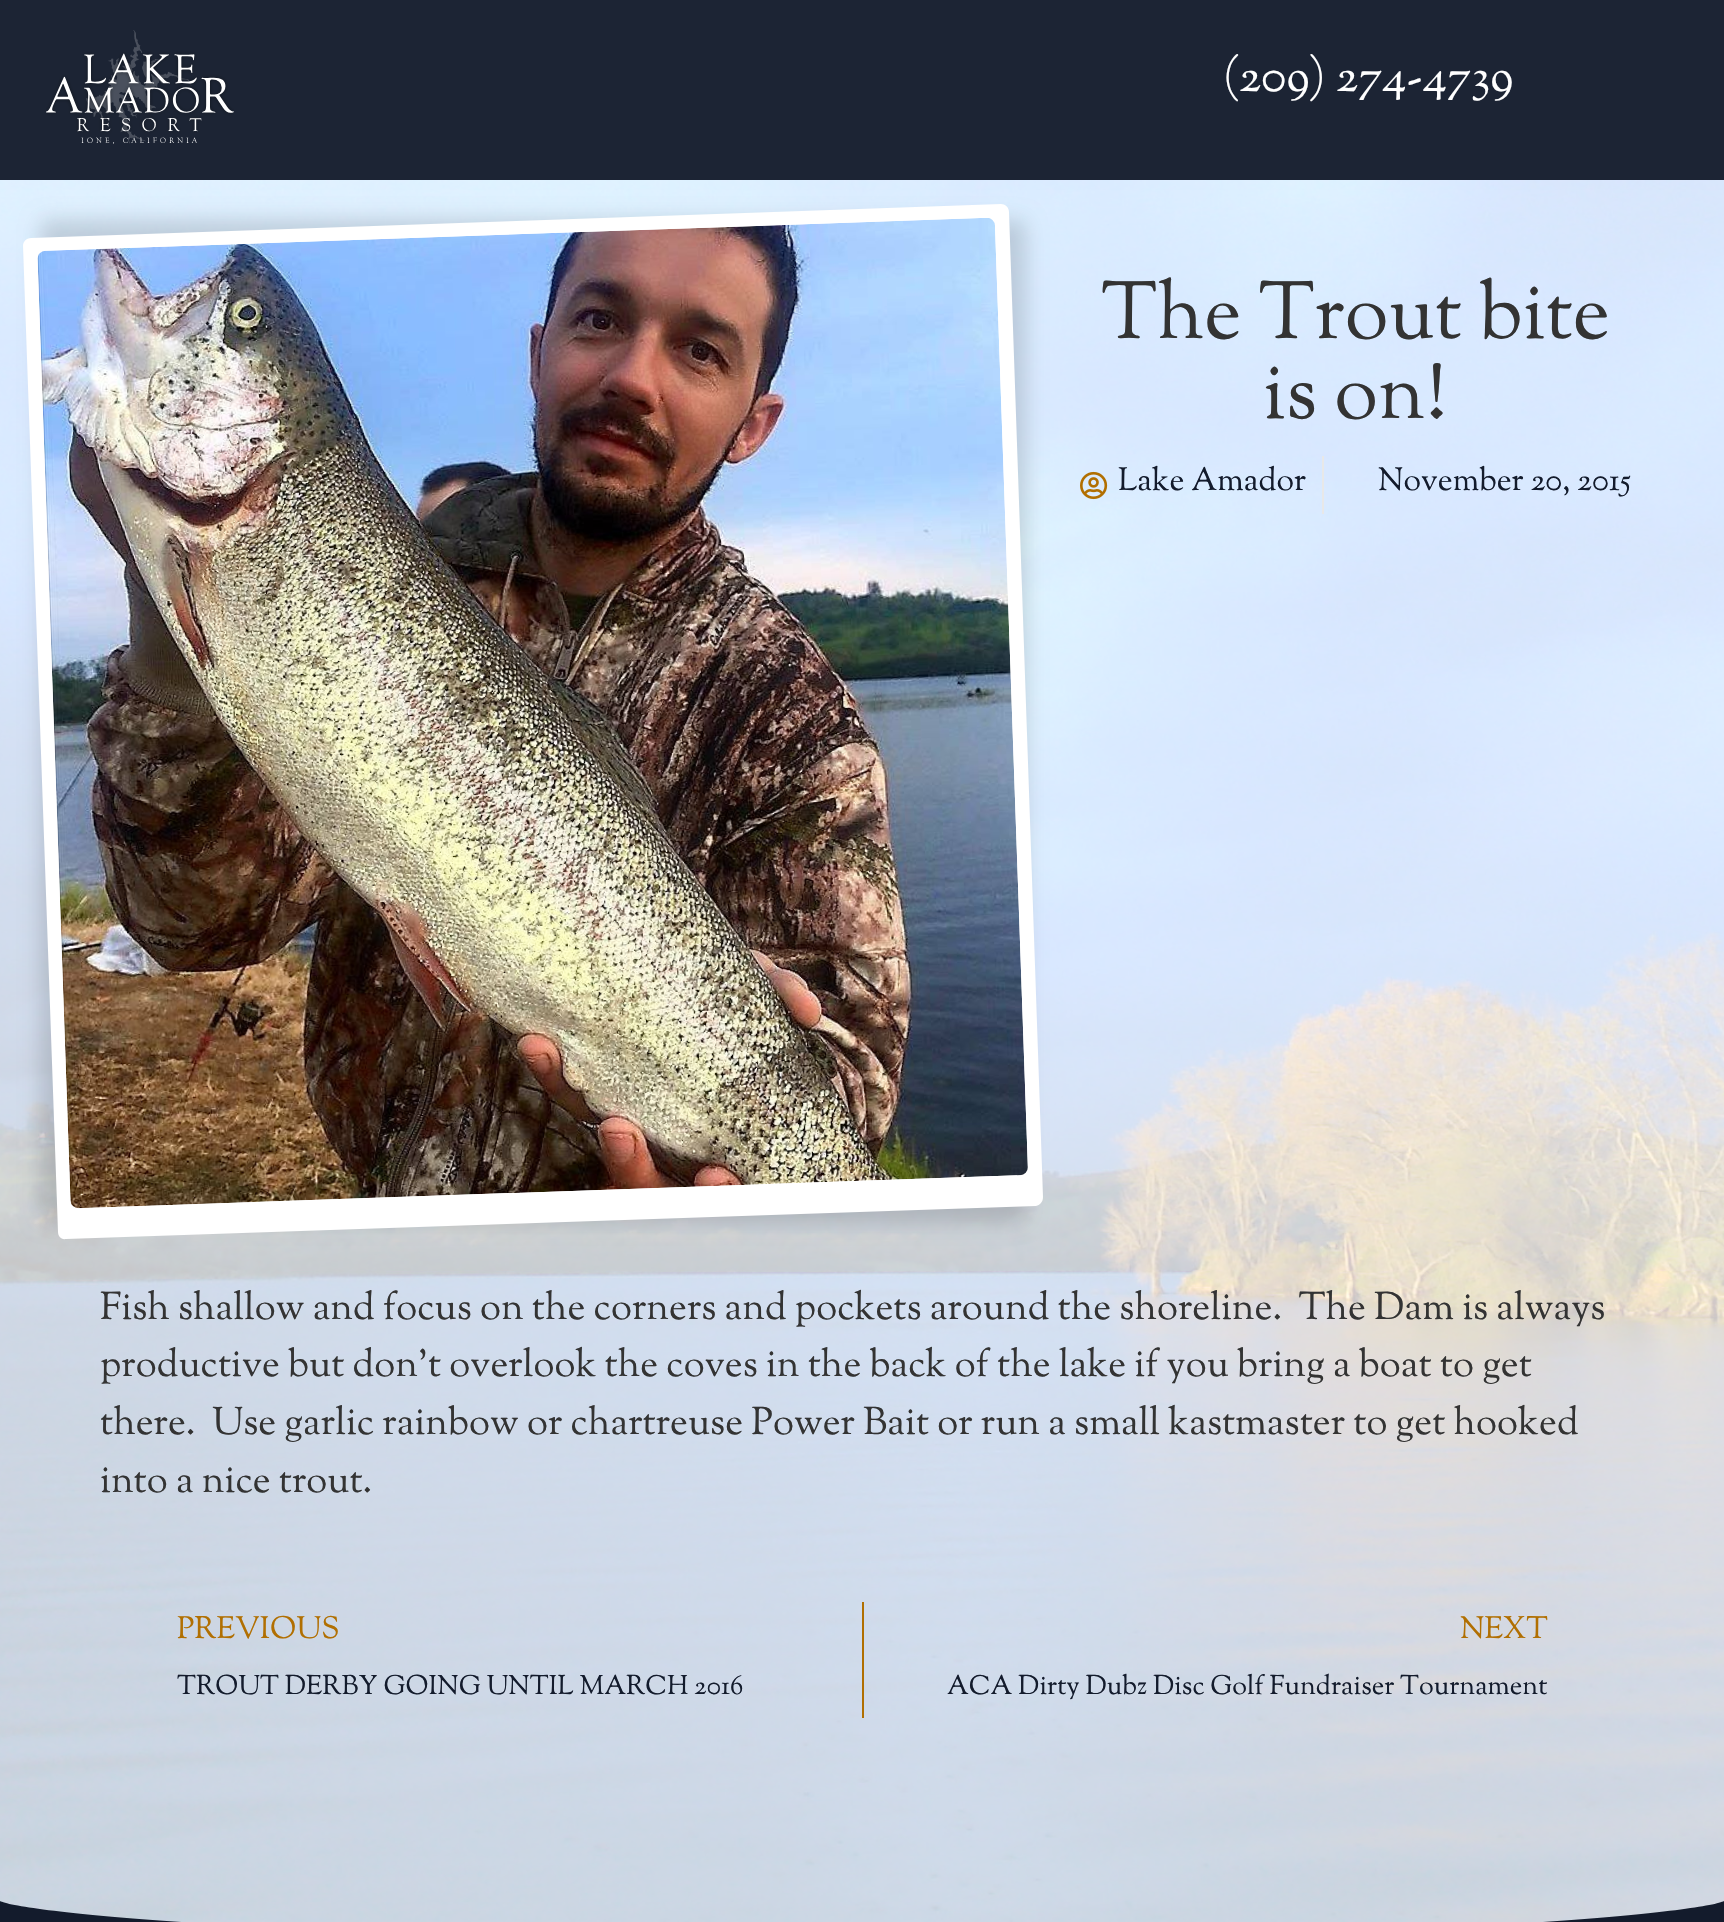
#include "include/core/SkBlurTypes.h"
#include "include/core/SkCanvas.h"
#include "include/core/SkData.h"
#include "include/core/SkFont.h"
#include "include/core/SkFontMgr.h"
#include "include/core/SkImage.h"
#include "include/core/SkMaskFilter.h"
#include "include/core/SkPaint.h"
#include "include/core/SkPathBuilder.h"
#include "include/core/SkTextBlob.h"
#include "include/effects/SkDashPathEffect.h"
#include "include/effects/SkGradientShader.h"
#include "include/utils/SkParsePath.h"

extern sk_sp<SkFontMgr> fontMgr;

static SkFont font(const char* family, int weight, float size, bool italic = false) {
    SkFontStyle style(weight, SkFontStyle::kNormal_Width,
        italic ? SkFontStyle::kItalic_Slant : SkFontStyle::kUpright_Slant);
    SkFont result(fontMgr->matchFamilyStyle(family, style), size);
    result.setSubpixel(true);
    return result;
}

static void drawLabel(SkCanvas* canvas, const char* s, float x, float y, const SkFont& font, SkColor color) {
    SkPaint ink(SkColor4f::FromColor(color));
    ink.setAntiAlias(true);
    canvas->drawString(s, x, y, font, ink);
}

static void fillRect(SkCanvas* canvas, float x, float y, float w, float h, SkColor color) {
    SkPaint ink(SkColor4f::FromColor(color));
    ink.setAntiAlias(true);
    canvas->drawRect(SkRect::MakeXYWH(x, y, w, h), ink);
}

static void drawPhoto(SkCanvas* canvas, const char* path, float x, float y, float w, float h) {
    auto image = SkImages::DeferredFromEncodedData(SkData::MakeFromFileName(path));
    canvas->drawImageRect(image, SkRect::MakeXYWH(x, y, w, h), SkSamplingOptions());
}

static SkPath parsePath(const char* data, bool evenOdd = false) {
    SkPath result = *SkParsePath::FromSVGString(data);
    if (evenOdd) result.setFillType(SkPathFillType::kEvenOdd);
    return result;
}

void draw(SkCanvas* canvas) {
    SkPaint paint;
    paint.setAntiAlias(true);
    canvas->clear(0xFF1C2434);
    drawPhoto(canvas, "assets/img1.png", 46, 30, 188, 114);
    SkFont font1 = font("Sorts Mill Goudy", 400, 48);
    drawLabel(canvas, "(209) 274-4739", 1223, 91, font1, 0xFFFFFFFF);
    drawPhoto(canvas, "assets/img2.png", 0, 180, 1724, 1742);
    paint.setColor(0x24000000);
    paint.setMaskFilter(SkMaskFilter::MakeBlur(kNormal_SkBlurStyle, 10));
    canvas->drawRoundRect(SkRect::MakeXYWH(40, 220, 986, 1002), 8, 8, paint);
    paint.setMaskFilter(nullptr);
    paint.setColor(0xFFFFFFFF);
    canvas->drawPath(parsePath("M31 238L1001 204C1005 204 1009 207 1009 212L1043 1197C1043 1202 1040 1205 1036 1206L66 1239C61 1240 58 1236 58 1232L23 246C23 242 26 238 31 238Z"), paint);
    drawPhoto(canvas, "assets/img3.png", 37, 218, 991, 991);
    SkFont font2 = font("Sorts Mill Goudy", 400, 80);
    drawLabel(canvas, "The Trout bite", 1101, 338, font2, 0xFF333333);
    drawLabel(canvas, "is on!", 1263, 418, font2, 0xFF333333);
    drawPhoto(canvas, "assets/img4.png", 1080, 471, 28, 29);
    SkFont font3 = font("Sorts Mill Goudy", 400, 32);
    drawLabel(canvas, "Lake Amador", 1118, 490, font3, 0xFF131B2C);
    fillRect(canvas, 1322, 456, 2, 58, 0xFFE8E8E8);
    drawLabel(canvas, "November 20, 2015", 1378, 490, font3, 0xFF131B2C);
    SkFont font4 = font("Sorts Mill Goudy", 400, 38.4f);
    drawLabel(canvas, "Fish shallow and focus on the corners and pockets around the shoreline.  The Dam is always", 100, 1319, font4, 0xFF333333);
    drawLabel(canvas, "productive but don’t overlook the coves in the back of the lake if you bring a boat to get", 100, 1376, font4, 0xFF333333);
    drawLabel(canvas, "there.  Use garlic rainbow or chartreuse Power Bait or run a small kastmaster to get hooked", 100, 1434, font4, 0xFF333333);
    drawLabel(canvas, "into a nice trout.", 100, 1492, font4, 0xFF333333);
    SkFont font5 = font("Sorts Mill Goudy", 400, 30.75f);
    drawLabel(canvas, "PREVIOUS", 177, 1638, font5, 0xFFB16F01);
    SkFont font6 = font("Sorts Mill Goudy", 400, 26.9f);
    drawLabel(canvas, "TROUT DERBY GOING UNTIL MARCH 2016", 177, 1694, font6, 0xFF131B2C);
    fillRect(canvas, 862, 1602, 2, 116, 0xFFB16F01);
    drawLabel(canvas, "NEXT", 1460, 1638, font5, 0xFFB16F01);
    drawLabel(canvas, "ACA Dirty Dubz Disc Golf Fundraiser Tournament", 947, 1694, font6, 0xFF131B2C);
    paint.setColor(0xFF131B2C);
    canvas->drawPath(parsePath("M862 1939C217 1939 0 1908-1 1900V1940H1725V1900C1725 1908 1507 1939 862 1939Z"), paint);
}
